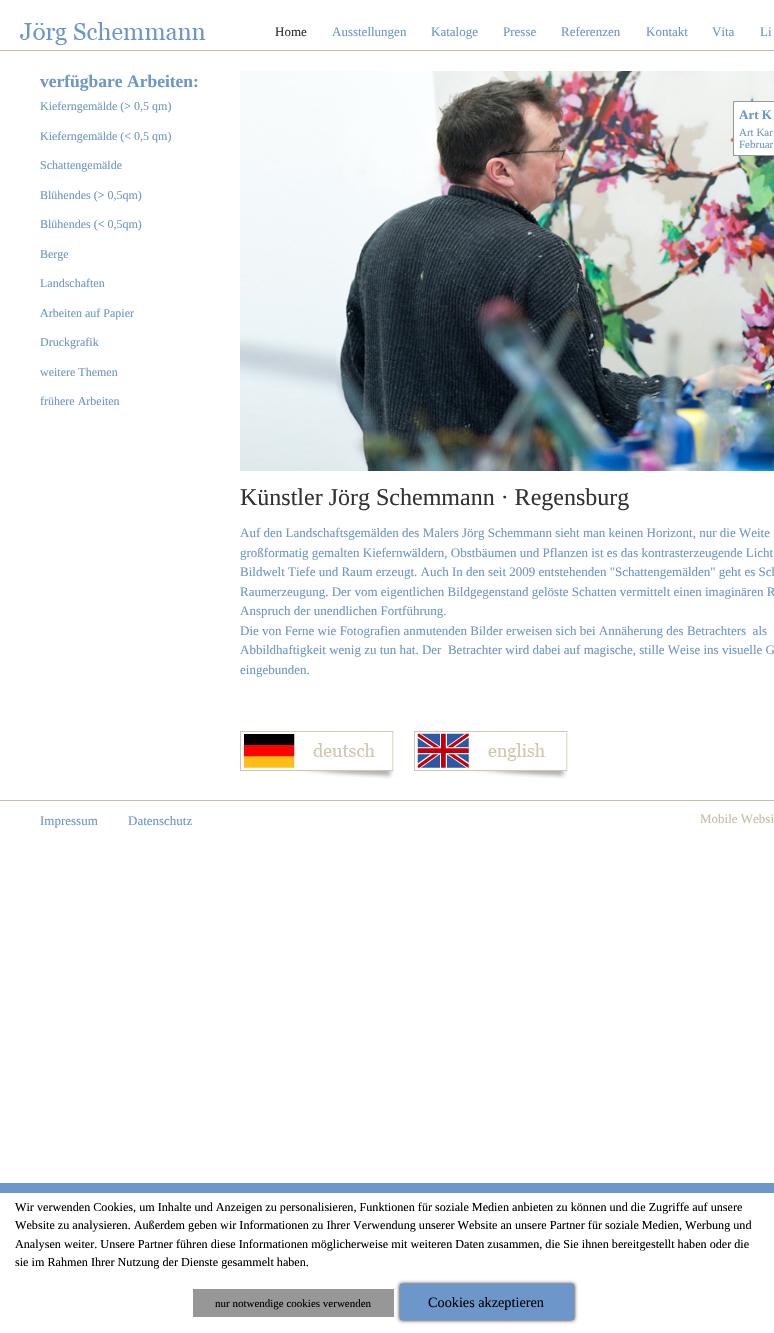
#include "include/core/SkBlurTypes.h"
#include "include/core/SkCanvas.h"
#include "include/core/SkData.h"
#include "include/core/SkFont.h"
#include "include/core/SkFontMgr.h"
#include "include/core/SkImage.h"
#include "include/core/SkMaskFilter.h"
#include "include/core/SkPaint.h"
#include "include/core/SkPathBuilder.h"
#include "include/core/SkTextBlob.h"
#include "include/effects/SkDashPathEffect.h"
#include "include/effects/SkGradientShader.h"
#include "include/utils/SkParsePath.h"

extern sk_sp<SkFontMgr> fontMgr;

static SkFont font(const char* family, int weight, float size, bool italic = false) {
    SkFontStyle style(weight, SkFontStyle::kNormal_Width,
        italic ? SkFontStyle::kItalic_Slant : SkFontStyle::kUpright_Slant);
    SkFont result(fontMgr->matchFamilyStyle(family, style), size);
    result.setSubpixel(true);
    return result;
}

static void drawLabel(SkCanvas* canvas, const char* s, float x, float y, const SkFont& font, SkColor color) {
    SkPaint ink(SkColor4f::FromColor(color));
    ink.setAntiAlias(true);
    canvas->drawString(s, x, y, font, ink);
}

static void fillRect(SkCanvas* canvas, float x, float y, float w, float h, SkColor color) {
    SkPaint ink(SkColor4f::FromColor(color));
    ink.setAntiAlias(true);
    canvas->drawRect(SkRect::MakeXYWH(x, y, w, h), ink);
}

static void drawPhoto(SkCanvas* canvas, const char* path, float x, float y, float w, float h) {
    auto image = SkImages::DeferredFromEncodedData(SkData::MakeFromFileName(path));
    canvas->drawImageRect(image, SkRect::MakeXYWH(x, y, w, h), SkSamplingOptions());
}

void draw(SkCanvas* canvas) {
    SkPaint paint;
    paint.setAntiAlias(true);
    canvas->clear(0xFFFFFFFF);
    drawPhoto(canvas, "assets/img1.png", 20, 22, 186, 23);
    SkFont font1 = font("Liberation Serif", 400, 13);
    drawLabel(canvas, "Home", 275, 36, font1, 0xFF333333);
    drawLabel(canvas, "Ausstellungen", 332, 36, font1, 0xFF6D96CA);
    drawLabel(canvas, "Kataloge", 431, 36, font1, 0xFF6D96CA);
    drawLabel(canvas, "Presse", 503, 36, font1, 0xFF6D96CA);
    drawLabel(canvas, "Referenzen", 561, 36, font1, 0xFF6D96CA);
    drawLabel(canvas, "Kontakt", 646, 36, font1, 0xFF6D96CA);
    drawLabel(canvas, "Vita", 712, 36, font1, 0xFF6D96CA);
    drawLabel(canvas, "Li", 760, 36, font1, 0xFF6D96CA);
    fillRect(canvas, 0, 50, 774, 1, 0xFFC8BBA4);
    SkFont font2 = font("Liberation Serif", 700, 17.5f);
    drawLabel(canvas, "verfügbare Arbeiten:", 40, 87, font2, 0xFF6D96CA);
    SkFont font3 = font("Liberation Serif", 400, 12);
    drawLabel(canvas, "Kieferngemälde (> 0,5 qm)", 40, 110, font3, 0xFF6D96CA);
    drawLabel(canvas, "Kieferngemälde (< 0,5 qm)", 40, 140, font3, 0xFF6D96CA);
    drawLabel(canvas, "Schattengemälde", 40, 169, font3, 0xFF6D96CA);
    drawLabel(canvas, "Blühendes (> 0,5qm)", 40, 199, font3, 0xFF6D96CA);
    drawLabel(canvas, "Blühendes (< 0,5qm)", 40, 228, font3, 0xFF6D96CA);
    drawLabel(canvas, "Berge", 40, 258, font3, 0xFF6D96CA);
    drawLabel(canvas, "Landschaften", 40, 287, font3, 0xFF6D96CA);
    drawLabel(canvas, "Arbeiten auf Papier", 40, 317, font3, 0xFF6D96CA);
    drawLabel(canvas, "Druckgrafik", 40, 346, font3, 0xFF6D96CA);
    drawLabel(canvas, "weitere Themen", 40, 376, font3, 0xFF6D96CA);
    drawLabel(canvas, "frühere Arbeiten", 40, 405, font3, 0xFF6D96CA);
    drawPhoto(canvas, "assets/img2.png", 240, 71, 534, 400);
    paint.setColor(0xFFFFFFFF);
    canvas->drawRect(SkRect::MakeXYWH(733.5f, 101.5f, 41, 54), paint);
    paint.setStroke(true);
    paint.setStrokeWidth(1);
    paint.setColor(0xFF999999);
    canvas->drawRect(SkRect::MakeXYWH(733.5f, 101.5f, 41, 54), paint);
    SkFont font4 = font("Liberation Serif", 700, 13);
    drawLabel(canvas, "Art K", 739, 119, font4, 0xFF6D96CA);
    SkFont font5 = font("Liberation Serif", 400, 11);
    drawLabel(canvas, "Art Kar", 739, 136, font5, 0xFF6D96CA);
    drawLabel(canvas, "Februar", 739, 148, font5, 0xFF6D96CA);
    SkFont font6 = font("Liberation Serif", 400, 24);
    drawLabel(canvas, "Künstler Jörg Schemmann · Regensburg", 240, 505, font6, 0xFF333333);
    drawLabel(canvas, "Auf den Landschaftsgemälden des Malers Jörg Schemmann sieht man keinen Horizont, nur die Weite", 240, 537, font1, 0xFF6D96CA);
    drawLabel(canvas, "großformatig gemalten Kiefernwäldern, Obstbäumen und Pflanzen ist es das kontrasterzeugende Licht", 240, 557, font1, 0xFF6D96CA);
    drawLabel(canvas, "Bildwelt Tiefe und Raum erzeugt. Auch In den seit 2009 entstehenden \"Schattengemälden\" geht es Sch", 240, 576, font1, 0xFF6D96CA);
    drawLabel(canvas, "Raumerzeugung. Der vom eigentlichen Bildgegenstand gelöste Schatten vermittelt einen imaginären R", 240, 596, font1, 0xFF6D96CA);
    drawLabel(canvas, "Anspruch der unendlichen Fortführung.", 240, 615, font1, 0xFF6D96CA);
    drawLabel(canvas, "Die von Ferne wie Fotografien anmutenden Bilder erweisen sich bei Annäherung des Betrachters  als", 240, 635, font1, 0xFF6D96CA);
    drawLabel(canvas, "Abbildhaftigkeit wenig zu tun hat. Der  Betrachter wird dabei auf magische, stille Weise ins visuelle G", 240, 654, font1, 0xFF6D96CA);
    drawLabel(canvas, "eingebunden.", 240, 674, font1, 0xFF6D96CA);
    drawPhoto(canvas, "assets/img3.png", 240, 731, 154, 48);
    drawPhoto(canvas, "assets/img4.png", 414, 731, 154, 48);
    fillRect(canvas, 0, 800, 774, 1, 0xFFC8BBA4);
    drawLabel(canvas, "Impressum", 40, 825, font1, 0xFF6D96CA);
    drawLabel(canvas, "Datenschutz", 128, 825, font1, 0xFF6D96CA);
    drawLabel(canvas, "Mobile Websi", 700, 823, font1, 0xFFC8BBA4);
    fillRect(canvas, 0, 1183, 774, 10, 0xFF6D96CA);
    SkFont font7 = font("Liberation Serif", 400, 12.15f);
    drawLabel(canvas, "Wir verwenden Cookies, um Inhalte und Anzeigen zu personalisieren, Funktionen für soziale Medien anbieten zu können und die Zugriffe auf unsere", 15, 1211, font7, 0xFF000000);
    drawLabel(canvas, "Website zu analysieren. Außerdem geben wir Informationen zu Ihrer Verwendung unserer Website an unsere Partner für soziale Medien, Werbung und", 15, 1229, font7, 0xFF000000);
    drawLabel(canvas, "Analysen weiter. Unsere Partner führen diese Informationen möglicherweise mit weiteren Daten zusammen, die Sie ihnen bereitgestellt haben oder die", 15, 1248, font7, 0xFF000000);
    drawLabel(canvas, "sie im Rahmen Ihrer Nutzung der Dienste gesammelt haben.", 15, 1266, font7, 0xFF000000);
    fillRect(canvas, 193, 1289, 201, 28, 0xFF979797);
    drawLabel(canvas, "nur notwendige cookies verwenden", 215, 1307, font5, 0xFF000000);
    paint.setStroke(false);
    paint.setColor(0xFF000000);
    paint.setMaskFilter(SkMaskFilter::MakeBlur(kNormal_SkBlurStyle, 2));
    canvas->drawRect(SkRect::MakeXYWH(400, 1284, 174, 36), paint);
    paint.setMaskFilter(nullptr);
    fillRect(canvas, 400, 1284, 174, 36, 0xFF6D96CA);
    SkFont font8 = font("Liberation Serif", 400, 14.25f);
    drawLabel(canvas, "Cookies akzeptieren", 428, 1307, font8, 0xFF000000);
}
